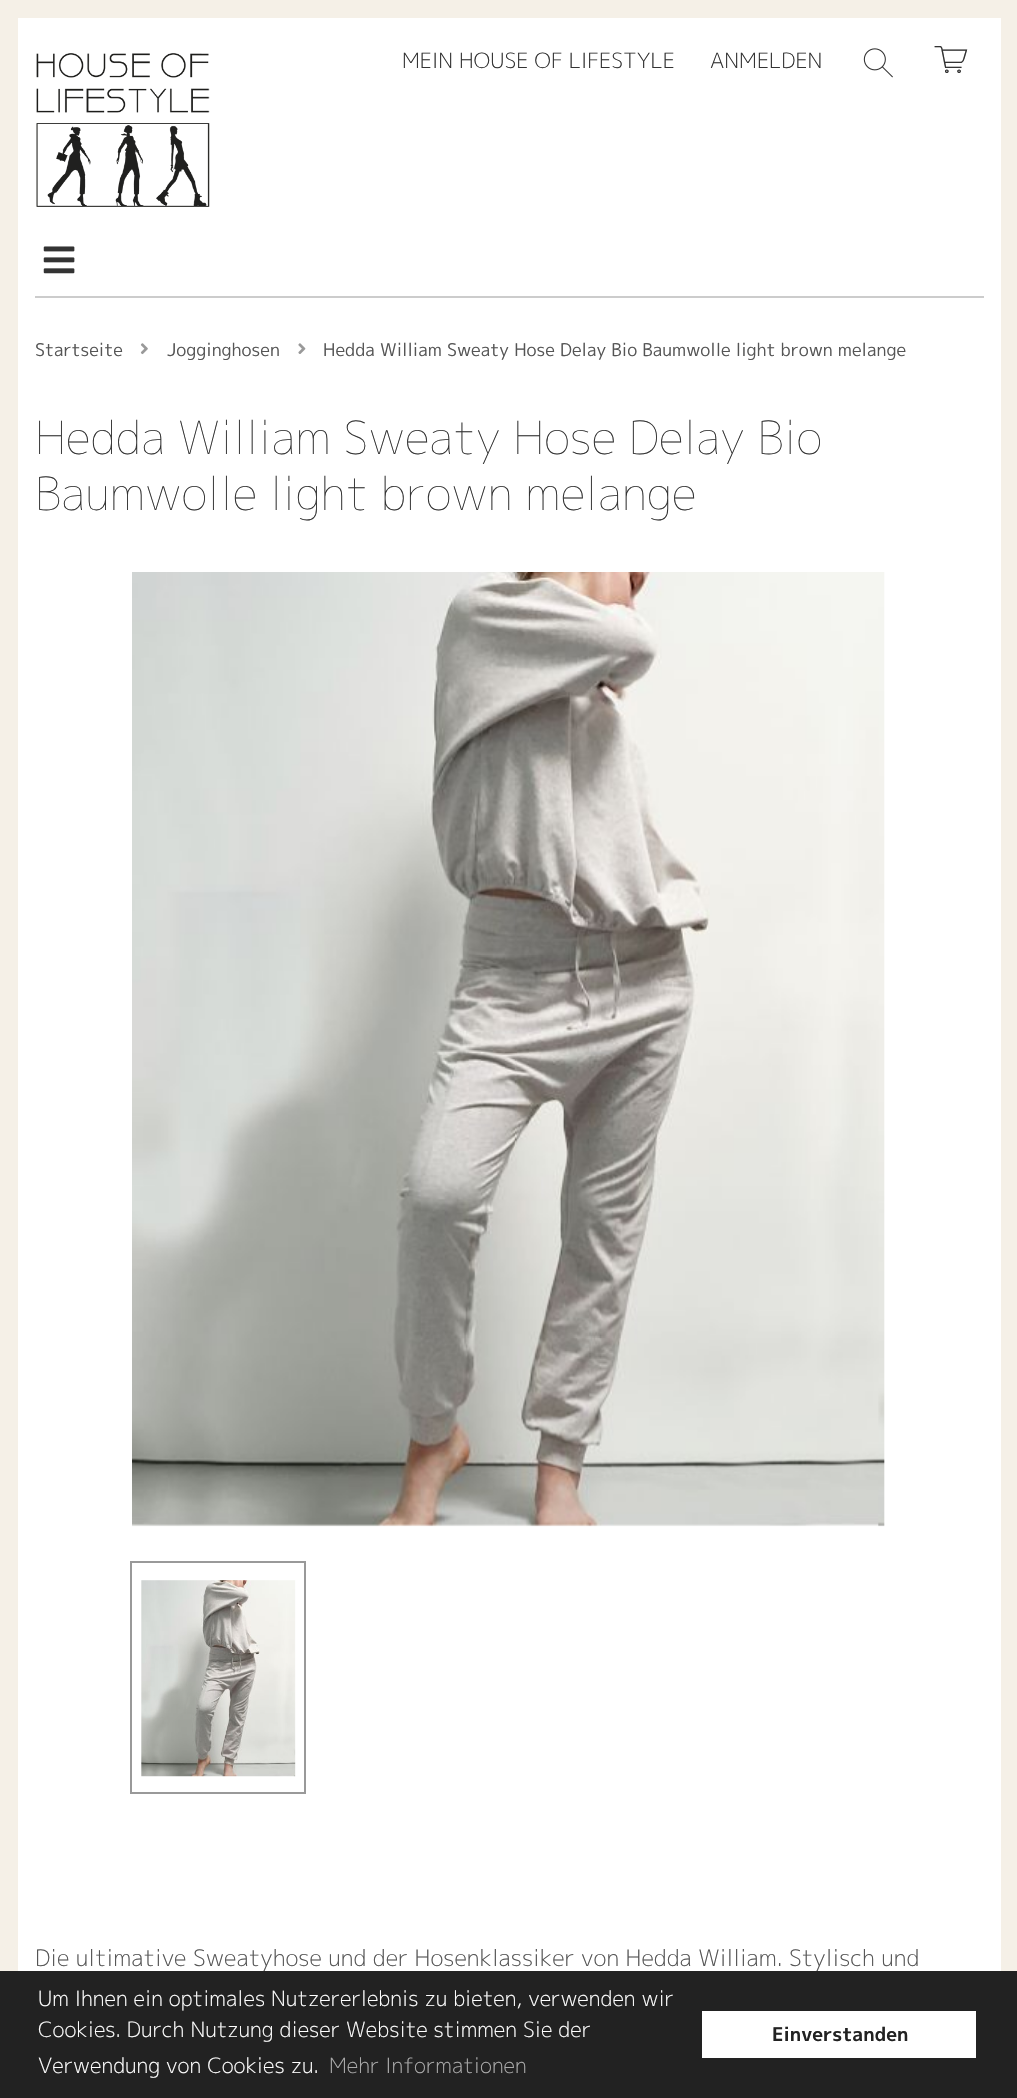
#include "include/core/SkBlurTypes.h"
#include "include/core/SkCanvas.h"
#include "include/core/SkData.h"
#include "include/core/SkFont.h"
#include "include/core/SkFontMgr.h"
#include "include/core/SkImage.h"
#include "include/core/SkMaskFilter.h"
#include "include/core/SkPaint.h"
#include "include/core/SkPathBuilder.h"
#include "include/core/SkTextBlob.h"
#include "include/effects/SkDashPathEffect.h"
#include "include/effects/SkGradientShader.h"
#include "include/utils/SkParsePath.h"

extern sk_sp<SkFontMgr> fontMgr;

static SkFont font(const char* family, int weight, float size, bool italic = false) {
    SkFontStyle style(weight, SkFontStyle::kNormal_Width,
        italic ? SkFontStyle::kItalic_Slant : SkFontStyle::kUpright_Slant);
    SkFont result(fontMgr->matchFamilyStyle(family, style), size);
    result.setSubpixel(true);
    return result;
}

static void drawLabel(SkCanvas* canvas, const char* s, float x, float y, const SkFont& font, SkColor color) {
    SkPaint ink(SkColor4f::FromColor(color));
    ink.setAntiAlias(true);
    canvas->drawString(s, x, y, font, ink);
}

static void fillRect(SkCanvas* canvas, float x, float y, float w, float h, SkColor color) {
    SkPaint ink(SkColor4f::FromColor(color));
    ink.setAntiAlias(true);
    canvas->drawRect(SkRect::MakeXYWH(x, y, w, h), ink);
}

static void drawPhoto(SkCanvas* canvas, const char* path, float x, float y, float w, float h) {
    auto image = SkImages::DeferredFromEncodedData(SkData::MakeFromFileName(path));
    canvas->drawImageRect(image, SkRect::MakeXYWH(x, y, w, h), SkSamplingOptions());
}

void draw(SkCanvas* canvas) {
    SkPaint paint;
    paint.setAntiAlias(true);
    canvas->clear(0xFFF5F0E7);
    fillRect(canvas, 18, 18, 983, 1953, 0xFFFFFFFF);
    drawPhoto(canvas, "assets/img1.png", 36, 53, 174, 154);
    SkFont font1 = font("M PLUS 1p", 300, 21);
    drawLabel(canvas, "MEIN HOUSE OF LIFESTYLE", 402, 68, font1, 0xFF333333);
    drawLabel(canvas, "ANMELDEN", 710, 68, font1, 0xFF333333);
    drawPhoto(canvas, "assets/img2.png", 863, 48, 30, 30);
    SkFont font2 = font("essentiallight", 300, 49);
    drawLabel(canvas, "\\", 926, 84, font2, 0xFF333333);
    fillRect(canvas, 35, 296, 949, 2, 0xFFCCCCCC);
    drawPhoto(canvas, "assets/img3.png", 43, 246, 32, 28);
    SkFont font3 = font("M PLUS 1p", 400, 17.5f);
    drawLabel(canvas, "Startseite", 35, 356, font3, 0xFF555555);
    drawPhoto(canvas, "assets/img4.png", 140, 343, 8, 12);
    drawLabel(canvas, "Jogginghosen", 167, 356, font3, 0xFF555555);
    drawPhoto(canvas, "assets/img5.png", 298, 343, 8, 11);
    drawLabel(canvas, "Hedda William Sweaty Hose Delay Bio Baumwolle light brown melange", 323, 356, font3, 0xFF555555);
    SkFont font4 = font("M PLUS 1p", 200, 45.5f);
    drawLabel(canvas, "Hedda William Sweaty Hose Delay Bio", 35, 454, font4, 0xFF333333);
    drawLabel(canvas, "Baumwolle light brown melange", 35, 510, font4, 0xFF333333);
    drawPhoto(canvas, "assets/img6.png", 132, 572, 753, 955);
    paint.setStroke(true);
    paint.setStrokeWidth(2);
    paint.setColor(0xFF999999);
    canvas->drawRect(SkRect::MakeXYWH(131, 1562, 174, 231), paint);
    drawPhoto(canvas, "assets/img7.png", 141, 1580, 155, 197);
    SkFont font5 = font("M PLUS 1p", 300, 22.75f);
    drawLabel(canvas, "Die ultimative Sweatyhose und der Hosenklassiker von Hedda William. Stylisch und", 35, 1966, font5, 0xFF555555);
    fillRect(canvas, 0, 1971, 1017, 127, 0xFF222222);
    drawLabel(canvas, "Um Ihnen ein optimales Nutzererlebnis zu bieten, verwenden wir", 38, 2006, font1, 0xFFFFFFFF);
    drawLabel(canvas, "Cookies. Durch Nutzung dieser Website stimmen Sie der", 38, 2037, font1, 0xFFFFFFFF);
    drawLabel(canvas, "Verwendung von Cookies zu.", 38, 2073, font1, 0xFFFFFFFF);
    drawLabel(canvas, "Mehr Informationen", 329, 2073, font1, 0xFFAAAAAA);
    fillRect(canvas, 702, 2011, 274, 47, 0xFFFFFFFF);
    SkFont font6 = font("M PLUS 1p", 700, 19);
    drawLabel(canvas, "Einverstanden", 772, 2041, font6, 0xFF222222);
}
